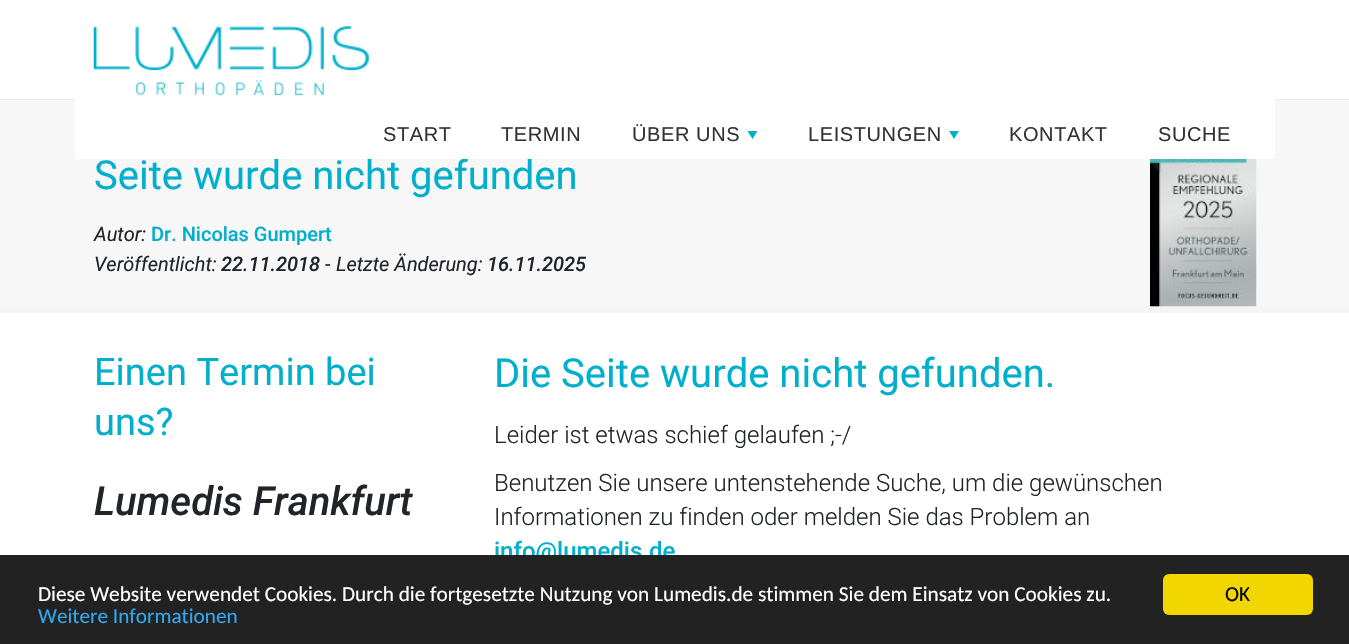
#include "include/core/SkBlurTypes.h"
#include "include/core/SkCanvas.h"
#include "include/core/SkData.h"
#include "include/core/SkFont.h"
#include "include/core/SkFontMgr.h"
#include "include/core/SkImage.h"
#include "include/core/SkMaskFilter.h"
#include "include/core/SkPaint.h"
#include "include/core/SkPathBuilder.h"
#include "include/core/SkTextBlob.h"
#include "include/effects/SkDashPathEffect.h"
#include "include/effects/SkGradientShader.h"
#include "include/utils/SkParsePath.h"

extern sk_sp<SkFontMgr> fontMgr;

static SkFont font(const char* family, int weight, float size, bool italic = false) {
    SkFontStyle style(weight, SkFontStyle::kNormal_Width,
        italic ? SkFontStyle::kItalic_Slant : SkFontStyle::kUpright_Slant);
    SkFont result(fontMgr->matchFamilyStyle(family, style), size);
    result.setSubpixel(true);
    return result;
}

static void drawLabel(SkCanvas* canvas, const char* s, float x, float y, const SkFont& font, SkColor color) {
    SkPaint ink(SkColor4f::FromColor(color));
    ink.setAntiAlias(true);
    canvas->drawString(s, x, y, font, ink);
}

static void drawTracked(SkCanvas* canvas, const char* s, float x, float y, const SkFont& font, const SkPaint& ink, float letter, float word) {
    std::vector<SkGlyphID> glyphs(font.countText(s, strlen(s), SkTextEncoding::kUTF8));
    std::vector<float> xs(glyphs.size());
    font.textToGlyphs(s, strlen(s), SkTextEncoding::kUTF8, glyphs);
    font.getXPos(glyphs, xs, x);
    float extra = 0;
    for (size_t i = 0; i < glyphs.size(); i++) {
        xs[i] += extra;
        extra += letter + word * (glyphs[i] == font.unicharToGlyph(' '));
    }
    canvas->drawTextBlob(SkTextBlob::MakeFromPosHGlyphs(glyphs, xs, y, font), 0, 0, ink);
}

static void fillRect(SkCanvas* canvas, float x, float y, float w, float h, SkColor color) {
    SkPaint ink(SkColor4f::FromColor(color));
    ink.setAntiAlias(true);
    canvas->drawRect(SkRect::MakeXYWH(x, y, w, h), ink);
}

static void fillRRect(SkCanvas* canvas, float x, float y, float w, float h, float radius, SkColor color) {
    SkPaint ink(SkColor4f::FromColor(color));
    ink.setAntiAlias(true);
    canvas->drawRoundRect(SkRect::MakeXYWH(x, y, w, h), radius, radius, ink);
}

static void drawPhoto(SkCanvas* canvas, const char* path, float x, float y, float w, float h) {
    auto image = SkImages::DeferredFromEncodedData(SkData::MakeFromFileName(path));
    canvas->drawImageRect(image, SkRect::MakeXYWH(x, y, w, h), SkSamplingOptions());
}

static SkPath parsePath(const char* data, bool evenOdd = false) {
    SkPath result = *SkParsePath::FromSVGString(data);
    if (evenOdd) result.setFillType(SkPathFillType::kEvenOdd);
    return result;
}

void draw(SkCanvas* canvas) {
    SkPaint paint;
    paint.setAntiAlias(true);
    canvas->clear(0xFFFFFFFF);
    fillRect(canvas, 0, 99, 1349, 1, 0xFFEAEAEA);
    drawPhoto(canvas, "assets/img1.png", 93, 26, 276, 70);
    fillRect(canvas, 0, 100, 1349, 206, 0xFFF7F7F7);
    SkFont font1 = font("Roboto", 400, 40);
    drawLabel(canvas, "Seite wurde nicht gefunden", 94, 189, font1, 0xFF00AFCB);
    fillRect(canvas, 75, 99, 1200, 60, 0xFFFFFFFF);
    SkFont font2 = font("Liberation Sans", 400, 20);
    paint.setColor(0xFF333333);
    drawTracked(canvas, "START", 383, 141, font2, paint, 0.6f, 0);
    drawTracked(canvas, "TERMIN", 501, 141, font2, paint, 0.6f, 0);
    drawTracked(canvas, "ÜBER UNS", 632, 141, font2, paint, 0.6f, 0);
    paint.setColor(0xFF00AFCB);
    canvas->drawPath(parsePath("M747.5 131H757.5L752.5 139Z"), paint);
    paint.setColor(0xFF333333);
    drawTracked(canvas, "LEISTUNGEN", 808, 141, font2, paint, 0.6f, 0);
    paint.setColor(0xFF00AFCB);
    canvas->drawPath(parsePath("M949 131H959L954 139Z"), paint);
    paint.setColor(0xFF333333);
    drawTracked(canvas, "KONTAKT", 1009, 141, font2, paint, 0.6f, 0);
    drawTracked(canvas, "SUCHE", 1158, 141, font2, paint, 0.6f, 0);
    fillRect(canvas, 0, 306, 1349, 7, 0xFFF4F4F4);
    drawPhoto(canvas, "assets/img2.png", 1150, 159, 107, 148);
    SkFont font3 = font("Roboto", 400, 20, true);
    drawLabel(canvas, "Autor:", 94, 241, font3, 0xFF212529);
    SkFont font4 = font("Roboto", 500, 20);
    drawLabel(canvas, "Dr. Nicolas Gumpert", 151, 241, font4, 0xFF00AFCB);
    drawLabel(canvas, "Veröffentlicht:", 94, 271, font3, 0xFF212529);
    SkFont font5 = font("Roboto", 500, 20, true);
    drawLabel(canvas, "22.11.2018", 221, 271, font5, 0xFF212529);
    SkFont font6 = font("Roboto", 400, 20);
    drawLabel(canvas, "-", 325, 271, font6, 0xFF212529);
    drawLabel(canvas, "Letzte Änderung:", 336, 271, font3, 0xFF212529);
    drawLabel(canvas, "16.11.2025", 487, 271, font5, 0xFF212529);
    SkFont font7 = font("Roboto", 400, 38);
    drawLabel(canvas, "Einen Termin bei", 94, 385, font7, 0xFF00AFCB);
    drawLabel(canvas, "uns?", 94, 435, font7, 0xFF00AFCB);
    SkFont font8 = font("Roboto", 500, 40, true);
    drawLabel(canvas, "Lumedis Frankfurt", 94, 515, font8, 0xFF212529);
    drawLabel(canvas, "Die Seite wurde nicht gefunden.", 494, 387, font1, 0xFF00AFCB);
    SkFont font9 = font("Roboto", 300, 24);
    drawLabel(canvas, "Leider ist etwas schief gelaufen ;-/", 494, 443, font9, 0xFF212529);
    drawLabel(canvas, "Benutzen Sie unsere untenstehende Suche, um die gewünschen", 494, 491, font9, 0xFF212529);
    drawLabel(canvas, "Informationen zu finden oder melden Sie das Problem an", 494, 525, font9, 0xFF212529);
    SkFont font10 = font("Roboto", 500, 24);
    drawLabel(canvas, "info@lumedis.de", 494, 559, font10, 0xFF00AFCB);
    fillRect(canvas, 0, 555, 1349, 89, 0xFF222222);
    SkFont font11 = font("Carlito", 400, 21.25f);
    drawLabel(canvas, "Diese Website verwendet Cookies. Durch die fortgesetzte Nutzung von Lumedis.de stimmen Sie dem Einsatz von Cookies zu.", 38, 601, font11, 0xFFFFFFFF);
    drawLabel(canvas, "Weitere Informationen", 38, 623, font11, 0xFF31A8F0);
    fillRRect(canvas, 1163, 574, 150, 41, 6, 0xFFF1D600);
    drawLabel(canvas, "OK", 1225, 601, font11, 0xFF000000);
}
